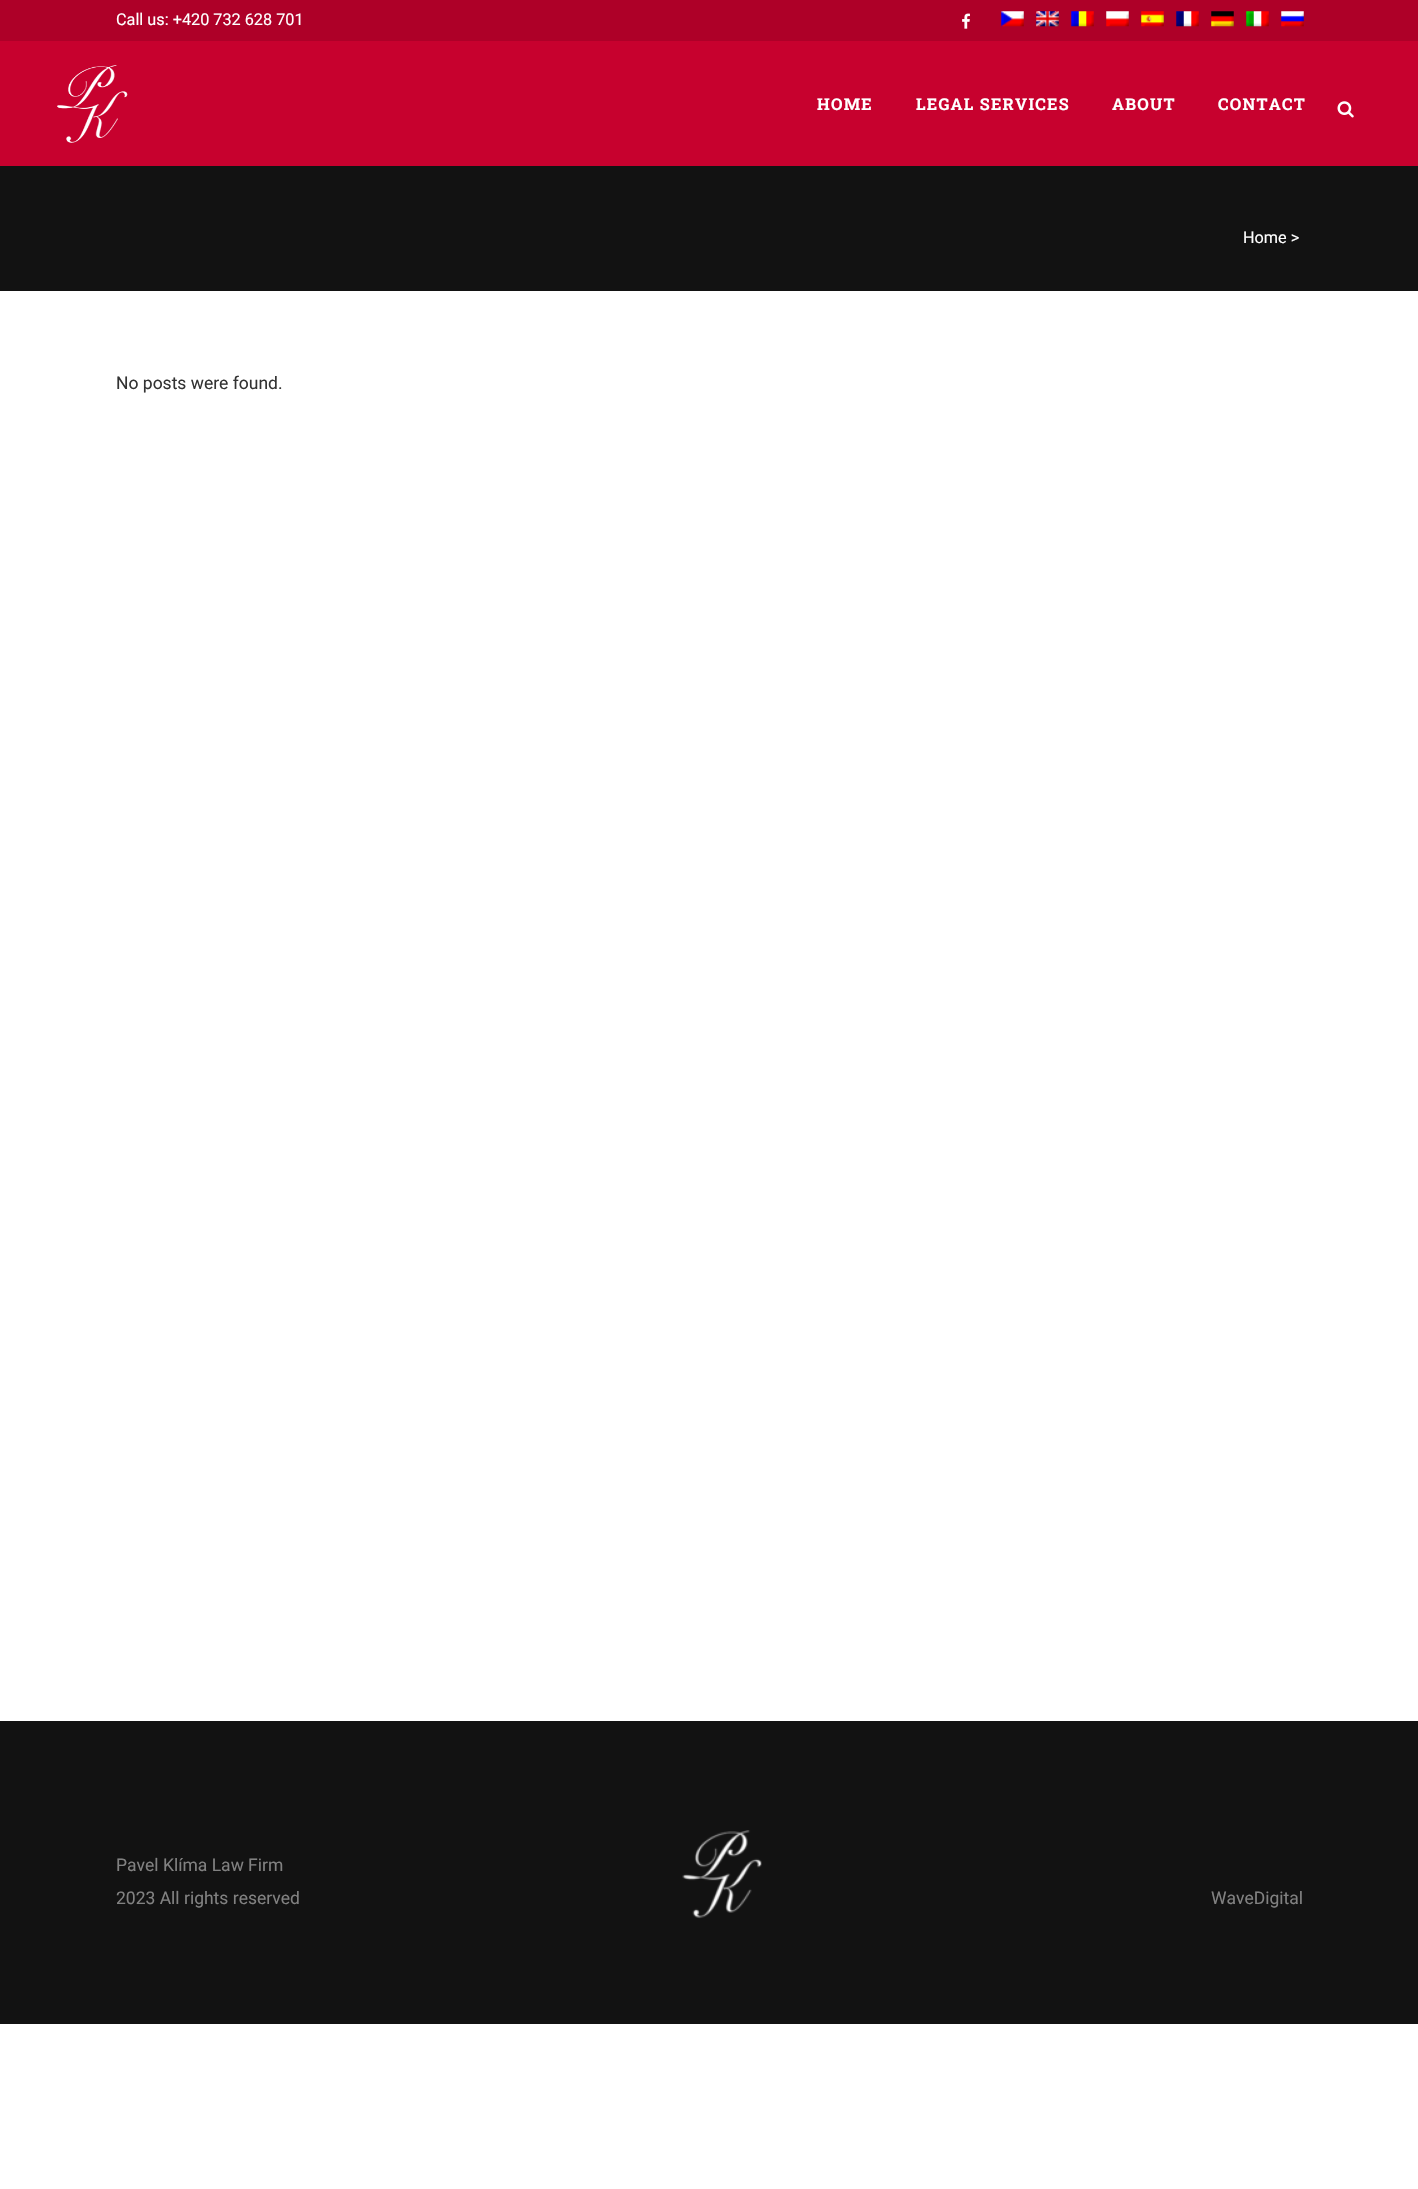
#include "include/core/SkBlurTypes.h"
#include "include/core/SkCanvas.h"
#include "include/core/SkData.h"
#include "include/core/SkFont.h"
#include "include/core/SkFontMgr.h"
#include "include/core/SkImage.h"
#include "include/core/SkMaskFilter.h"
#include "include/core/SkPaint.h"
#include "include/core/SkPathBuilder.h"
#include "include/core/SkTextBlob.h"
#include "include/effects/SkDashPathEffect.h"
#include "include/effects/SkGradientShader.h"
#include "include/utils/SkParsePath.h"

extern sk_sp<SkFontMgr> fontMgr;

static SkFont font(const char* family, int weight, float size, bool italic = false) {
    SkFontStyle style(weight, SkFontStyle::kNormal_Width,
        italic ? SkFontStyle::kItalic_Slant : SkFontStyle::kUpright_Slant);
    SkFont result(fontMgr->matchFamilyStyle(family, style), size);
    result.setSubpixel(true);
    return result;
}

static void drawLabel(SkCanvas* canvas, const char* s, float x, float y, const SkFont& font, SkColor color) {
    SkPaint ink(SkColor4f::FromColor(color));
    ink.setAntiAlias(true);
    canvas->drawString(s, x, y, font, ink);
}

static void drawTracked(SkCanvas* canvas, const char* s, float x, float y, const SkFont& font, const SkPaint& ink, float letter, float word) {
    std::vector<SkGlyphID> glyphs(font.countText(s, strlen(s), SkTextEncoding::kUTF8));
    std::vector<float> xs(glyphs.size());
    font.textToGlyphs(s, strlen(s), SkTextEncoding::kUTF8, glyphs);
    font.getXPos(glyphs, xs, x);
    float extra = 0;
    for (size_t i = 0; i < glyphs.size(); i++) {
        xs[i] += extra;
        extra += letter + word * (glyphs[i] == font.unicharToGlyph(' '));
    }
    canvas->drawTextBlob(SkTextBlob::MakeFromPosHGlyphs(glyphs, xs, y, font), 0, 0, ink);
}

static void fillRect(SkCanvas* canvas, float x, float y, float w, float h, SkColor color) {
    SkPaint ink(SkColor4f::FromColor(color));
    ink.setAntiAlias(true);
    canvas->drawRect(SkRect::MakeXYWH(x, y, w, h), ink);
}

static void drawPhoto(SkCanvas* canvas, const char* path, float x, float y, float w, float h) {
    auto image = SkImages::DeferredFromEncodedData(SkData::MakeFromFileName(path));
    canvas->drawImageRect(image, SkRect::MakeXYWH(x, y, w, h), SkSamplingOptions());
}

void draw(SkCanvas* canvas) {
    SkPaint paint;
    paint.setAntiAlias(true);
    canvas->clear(0xFFFFFFFF);
    fillRect(canvas, 0, 0, 1418, 41, 0xFFAE0028);
    SkFont font1 = font("Roboto", 400, 16.25f);
    drawLabel(canvas, "Call us: +420 732 628 701", 116, 25, font1, 0xFFFFFFFF);
    drawPhoto(canvas, "assets/img1.png", 962, 13, 8, 16);
    drawPhoto(canvas, "assets/img2.png", 1001, 11, 23, 16);
    drawPhoto(canvas, "assets/img3.png", 1036, 11, 23, 16);
    drawPhoto(canvas, "assets/img4.png", 1071, 11, 23, 16);
    drawPhoto(canvas, "assets/img5.png", 1106, 11, 23, 16);
    drawPhoto(canvas, "assets/img6.png", 1141, 11, 23, 16);
    drawPhoto(canvas, "assets/img7.png", 1176, 11, 23, 16);
    drawPhoto(canvas, "assets/img8.png", 1211, 11, 23, 16);
    drawPhoto(canvas, "assets/img9.png", 1246, 11, 23, 16);
    drawPhoto(canvas, "assets/img10.png", 1281, 11, 23, 16);
    fillRect(canvas, 0, 41, 1418, 125, 0xFFC7012E);
    drawPhoto(canvas, "assets/img11.png", 57, 65, 71, 78);
    SkFont font2 = font("Roboto Slab", 700, 16.25f);
    paint.setColor(0xFFFFFFFF);
    drawTracked(canvas, "HOME", 817, 110, font2, paint, 1.25f, 0);
    drawTracked(canvas, "LEGAL SERVICES", 916, 110, font2, paint, 1.25f, 0);
    drawTracked(canvas, "ABOUT", 1112, 110, font2, paint, 1.25f, 0);
    drawTracked(canvas, "CONTACT", 1218, 110, font2, paint, 1.25f, 0);
    drawPhoto(canvas, "assets/img12.png", 1337, 101, 17, 17);
    fillRect(canvas, 0, 166, 1418, 125, 0xFF121212);
    drawLabel(canvas, "Home >", 1243, 243, font1, 0xFFFFFFFF);
    SkFont font3 = font("Roboto", 400, 17.5f);
    drawLabel(canvas, "No posts were found.", 116, 389, font3, 0xFF333333);
    fillRect(canvas, 0, 1721, 1418, 303, 0xFF121212);
    drawLabel(canvas, "Pavel Klíma Law Firm", 116, 1871, font3, 0xFF818181);
    drawLabel(canvas, "2023 All rights reserved", 116, 1904, font3, 0xFF818181);
    drawPhoto(canvas, "assets/img13.png", 682, 1830, 80, 89);
    drawLabel(canvas, "WaveDigital", 1211, 1904, font3, 0xFF818181);
}
